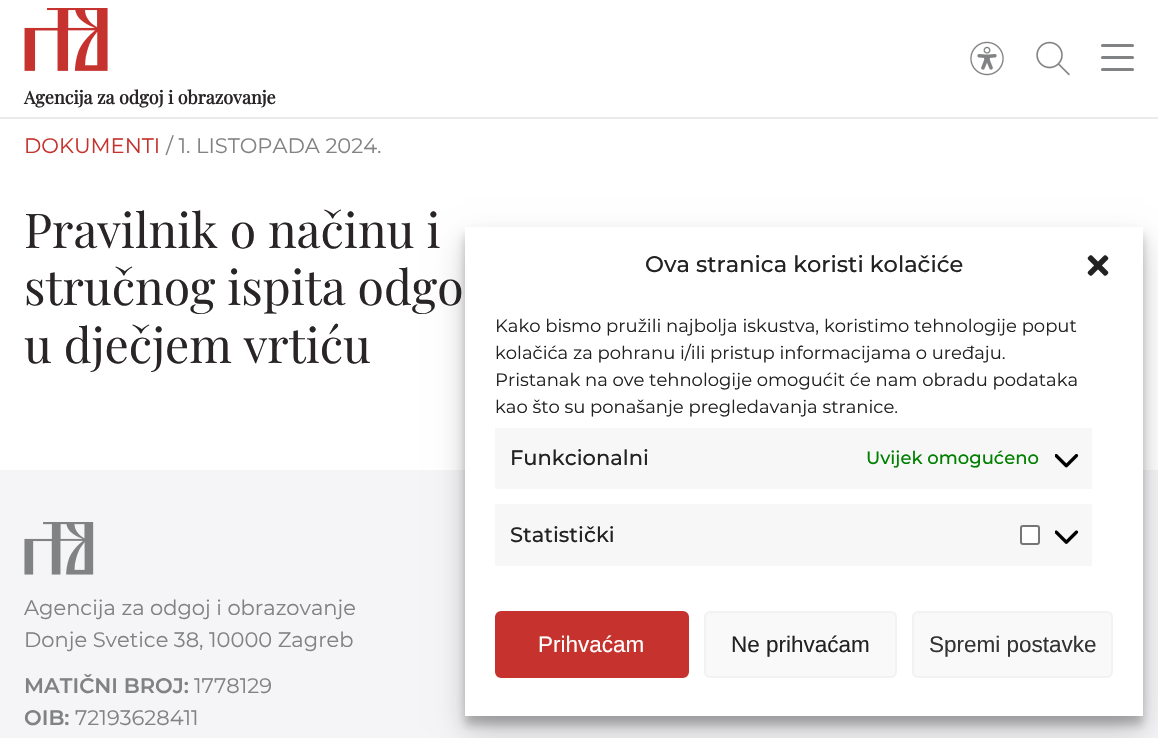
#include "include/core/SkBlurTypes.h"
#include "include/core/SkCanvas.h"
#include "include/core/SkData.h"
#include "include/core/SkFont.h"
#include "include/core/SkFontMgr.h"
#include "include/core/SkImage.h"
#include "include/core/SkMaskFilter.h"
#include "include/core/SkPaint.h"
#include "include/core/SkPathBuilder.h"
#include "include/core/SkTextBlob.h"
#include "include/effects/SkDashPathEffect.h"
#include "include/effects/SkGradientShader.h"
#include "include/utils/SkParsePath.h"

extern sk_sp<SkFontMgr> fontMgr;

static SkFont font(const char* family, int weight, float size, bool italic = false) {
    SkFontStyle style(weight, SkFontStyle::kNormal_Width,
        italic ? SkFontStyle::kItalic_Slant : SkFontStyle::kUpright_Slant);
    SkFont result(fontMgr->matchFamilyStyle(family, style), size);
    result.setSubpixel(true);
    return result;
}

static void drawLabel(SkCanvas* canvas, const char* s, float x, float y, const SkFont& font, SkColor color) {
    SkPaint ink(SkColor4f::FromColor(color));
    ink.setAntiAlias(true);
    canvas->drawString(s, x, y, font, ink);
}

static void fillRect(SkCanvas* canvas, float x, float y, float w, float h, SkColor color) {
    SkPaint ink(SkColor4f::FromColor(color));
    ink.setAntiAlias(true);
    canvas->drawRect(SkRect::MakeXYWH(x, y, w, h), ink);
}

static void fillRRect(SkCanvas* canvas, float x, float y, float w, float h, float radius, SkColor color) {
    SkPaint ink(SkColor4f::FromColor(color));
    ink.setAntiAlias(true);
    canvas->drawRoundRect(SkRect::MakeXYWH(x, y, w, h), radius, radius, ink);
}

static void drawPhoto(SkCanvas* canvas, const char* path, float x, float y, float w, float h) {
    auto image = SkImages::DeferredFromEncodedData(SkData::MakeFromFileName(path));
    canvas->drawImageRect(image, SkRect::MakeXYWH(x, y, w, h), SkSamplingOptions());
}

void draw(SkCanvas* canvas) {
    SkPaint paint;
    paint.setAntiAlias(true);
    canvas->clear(0xFFFFFFFF);
    fillRect(canvas, 0, 117, 1158, 2, 0xFFEBEBEB);
    drawPhoto(canvas, "assets/img1.png", 970, 41, 34, 35);
    drawPhoto(canvas, "assets/img2.png", 1036, 41, 34, 35);
    fillRRect(canvas, 1101, 44, 33, 3, 1.5f, 0xFF818284);
    fillRRect(canvas, 1101, 56, 33, 3, 1.5f, 0xFF818284);
    fillRRect(canvas, 1101, 68, 33, 3, 1.5f, 0xFF818284);
    drawPhoto(canvas, "assets/img3.png", 24, 8, 84, 63);
    SkFont font1 = font("Playfair Display", 700, 18);
    drawLabel(canvas, "Agencija za odgoj i obrazovanje", 24, 104, font1, 0xFF292526);
    SkFont font2 = font("Montserrat", 400, 21);
    drawLabel(canvas, "DOKUMENTI", 24, 153, font2, 0xFFC6322D);
    drawLabel(canvas, "/ 1. LISTOPADA 2024.", 166, 153, font2, 0xFF818284);
    SkFont font3 = font("Playfair Display", 400, 48);
    drawLabel(canvas, "Pravilnik o načinu i", 24, 248, font3, 0xFF292526);
    drawLabel(canvas, "stručnog ispita odgo", 24, 305, font3, 0xFF292526);
    drawLabel(canvas, "u dječjem vrtiću", 24, 363, font3, 0xFF292526);
    fillRect(canvas, 0, 470, 1158, 268, 0xFFF5F5F7);
    paint.setColor(0x3B000000);
    paint.setMaskFilter(SkMaskFilter::MakeBlur(kNormal_SkBlurStyle, 4.5f));
    canvas->drawRect(SkRect::MakeXYWH(465, 236, 678, 489), paint);
    paint.setMaskFilter(nullptr);
    paint.setColor(0x30000000);
    paint.setMaskFilter(SkMaskFilter::MakeBlur(kNormal_SkBlurStyle, 15));
    canvas->drawRect(SkRect::MakeXYWH(465, 242, 678, 489), paint);
    paint.setMaskFilter(nullptr);
    fillRect(canvas, 465, 227, 678, 489, 0xFFFFFFFF);
    SkFont font4 = font("Montserrat", 500, 22.5f);
    drawLabel(canvas, "Ova stranica koristi kolačiće", 645, 272, font4, 0xFF222222);
    drawPhoto(canvas, "assets/img4.png", 1087, 255, 22, 21);
    SkFont font5 = font("Montserrat", 400, 18);
    drawLabel(canvas, "Kako bismo pružili najbolja iskustva, koristimo tehnologije poput", 495, 332, font5, 0xFF222222);
    drawLabel(canvas, "kolačića za pohranu i/ili pristup informacijama o uređaju.", 495, 359, font5, 0xFF222222);
    drawLabel(canvas, "Pristanak na ove tehnologije omogućit će nam obradu podataka", 495, 386, font5, 0xFF222222);
    drawLabel(canvas, "kao što su ponašanje pregledavanja stranice.", 495, 413, font5, 0xFF222222);
    fillRect(canvas, 495, 428, 597, 61, 0xFFF7F7F7);
    SkFont font6 = font("Montserrat", 500, 21);
    drawLabel(canvas, "Funkcionalni", 510, 465, font6, 0xFF222222);
    SkFont font7 = font("Montserrat", 500, 18);
    drawLabel(canvas, "Uvijek omogućeno", 866, 464, font7, 0xFF008000);
    drawPhoto(canvas, "assets/img5.png", 1055, 454, 24, 14);
    fillRect(canvas, 495, 504, 597, 62, 0xFFF7F7F7);
    drawLabel(canvas, "Statistički", 510, 542, font6, 0xFF222222);
    paint.setColor(0xFFFFFFFF);
    canvas->drawRoundRect(SkRect::MakeXYWH(1021, 526, 18, 18), 2, 2, paint);
    paint.setStroke(true);
    paint.setStrokeWidth(2);
    paint.setColor(0xFF767676);
    canvas->drawRoundRect(SkRect::MakeXYWH(1021, 526, 18, 18), 2, 2, paint);
    drawPhoto(canvas, "assets/img6.png", 1055, 530, 24, 14);
    paint.setStroke(false);
    paint.setColor(0xFFC6322D);
    canvas->drawRoundRect(SkRect::MakeXYWH(496, 612, 192, 65), 5, 5, paint);
    paint.setStroke(true);
    canvas->drawRoundRect(SkRect::MakeXYWH(496, 612, 192, 65), 5, 5, paint);
    SkFont font8 = font("Liberation Sans", 400, 22.5f);
    drawLabel(canvas, "Prihvaćam", 538, 652, font8, 0xFFFFFFFF);
    paint.setStroke(false);
    paint.setColor(0xFFF9F9F9);
    canvas->drawRoundRect(SkRect::MakeXYWH(705, 612, 191, 65), 5, 5, paint);
    paint.setStroke(true);
    paint.setColor(0xFFF2F2F2);
    canvas->drawRoundRect(SkRect::MakeXYWH(705, 612, 191, 65), 5, 5, paint);
    drawLabel(canvas, "Ne prihvaćam", 731, 652, font8, 0xFF222222);
    paint.setStroke(false);
    paint.setColor(0xFFF9F9F9);
    canvas->drawRoundRect(SkRect::MakeXYWH(913, 612, 199, 65), 5, 5, paint);
    paint.setStroke(true);
    paint.setColor(0xFFF2F2F2);
    canvas->drawRoundRect(SkRect::MakeXYWH(913, 612, 199, 65), 5, 5, paint);
    drawLabel(canvas, "Spremi postavke", 929, 652, font8, 0xFF333333);
    drawPhoto(canvas, "assets/img7.png", 24, 522, 70, 53);
    drawLabel(canvas, "Agencija za odgoj i obrazovanje", 24, 615, font2, 0xFF818284);
    drawLabel(canvas, "Donje Svetice 38, 10000 Zagreb", 24, 647, font2, 0xFF818284);
    SkFont font9 = font("Montserrat", 600, 21);
    drawLabel(canvas, "MATIČNI BROJ:", 24, 693, font9, 0xFF818284);
    drawLabel(canvas, "1778129", 194, 693, font2, 0xFF818284);
    drawLabel(canvas, "OIB:", 24, 725, font9, 0xFF818284);
    drawLabel(canvas, "72193628411", 75, 725, font2, 0xFF818284);
}
